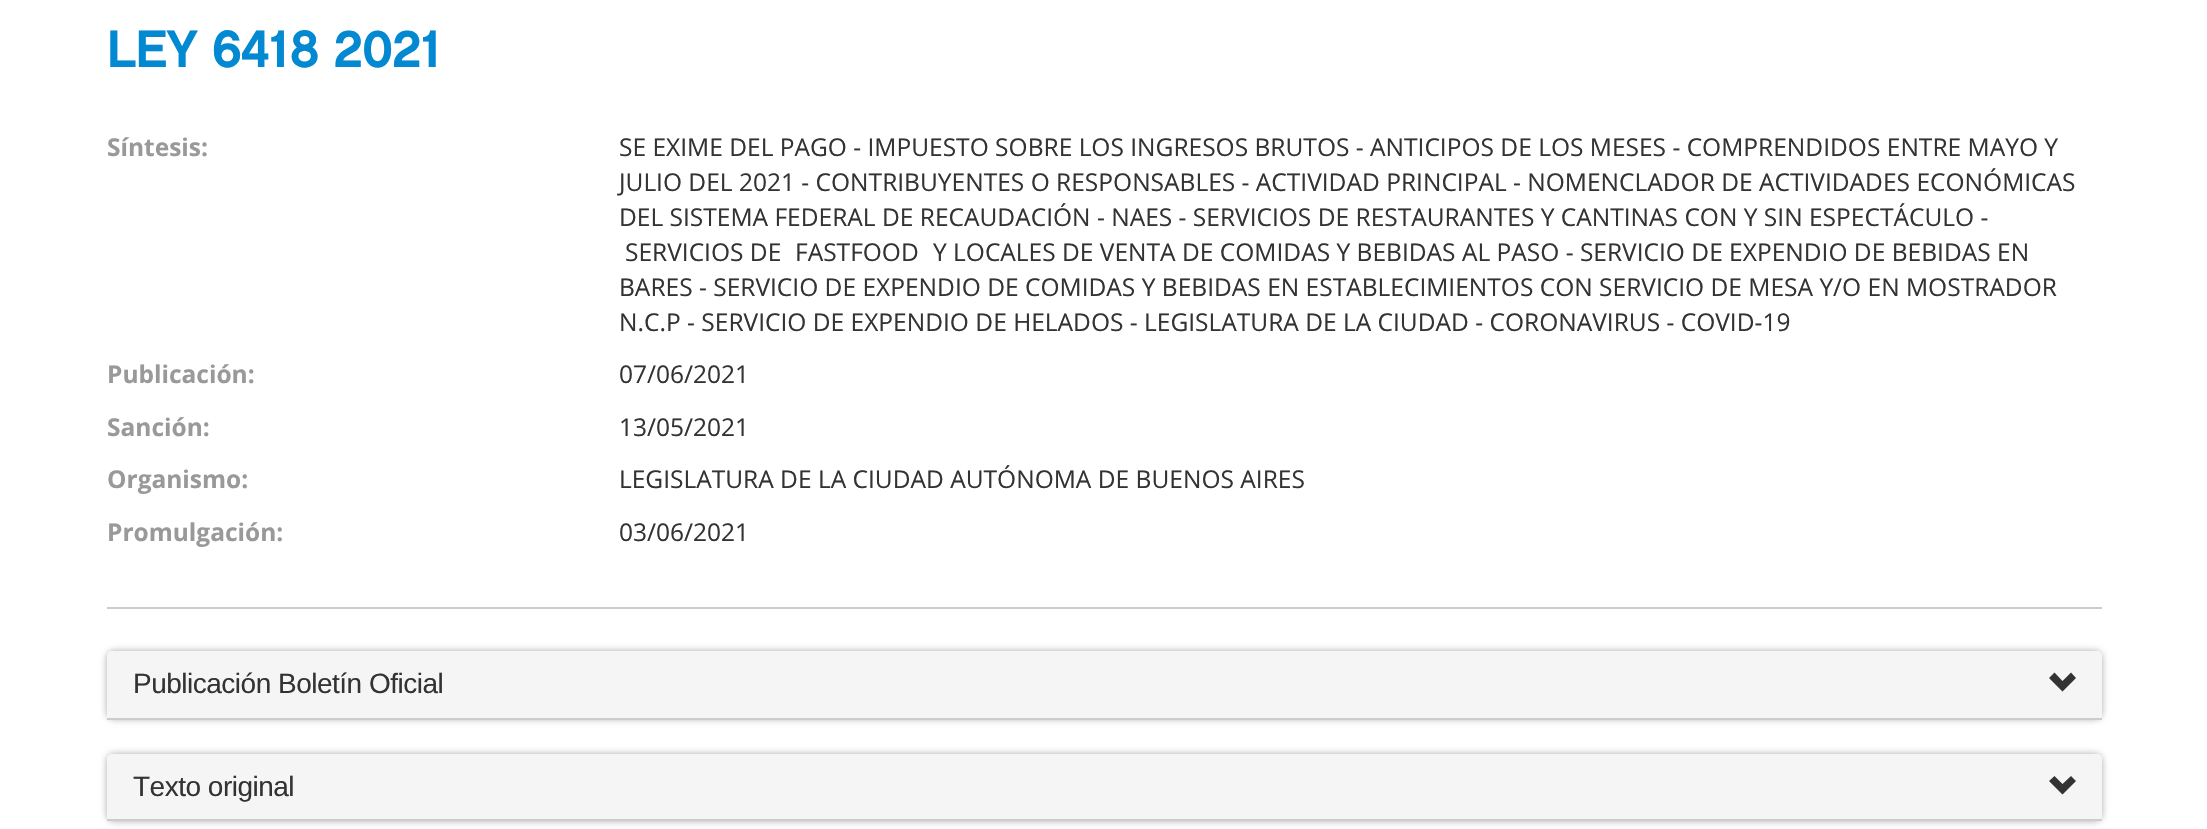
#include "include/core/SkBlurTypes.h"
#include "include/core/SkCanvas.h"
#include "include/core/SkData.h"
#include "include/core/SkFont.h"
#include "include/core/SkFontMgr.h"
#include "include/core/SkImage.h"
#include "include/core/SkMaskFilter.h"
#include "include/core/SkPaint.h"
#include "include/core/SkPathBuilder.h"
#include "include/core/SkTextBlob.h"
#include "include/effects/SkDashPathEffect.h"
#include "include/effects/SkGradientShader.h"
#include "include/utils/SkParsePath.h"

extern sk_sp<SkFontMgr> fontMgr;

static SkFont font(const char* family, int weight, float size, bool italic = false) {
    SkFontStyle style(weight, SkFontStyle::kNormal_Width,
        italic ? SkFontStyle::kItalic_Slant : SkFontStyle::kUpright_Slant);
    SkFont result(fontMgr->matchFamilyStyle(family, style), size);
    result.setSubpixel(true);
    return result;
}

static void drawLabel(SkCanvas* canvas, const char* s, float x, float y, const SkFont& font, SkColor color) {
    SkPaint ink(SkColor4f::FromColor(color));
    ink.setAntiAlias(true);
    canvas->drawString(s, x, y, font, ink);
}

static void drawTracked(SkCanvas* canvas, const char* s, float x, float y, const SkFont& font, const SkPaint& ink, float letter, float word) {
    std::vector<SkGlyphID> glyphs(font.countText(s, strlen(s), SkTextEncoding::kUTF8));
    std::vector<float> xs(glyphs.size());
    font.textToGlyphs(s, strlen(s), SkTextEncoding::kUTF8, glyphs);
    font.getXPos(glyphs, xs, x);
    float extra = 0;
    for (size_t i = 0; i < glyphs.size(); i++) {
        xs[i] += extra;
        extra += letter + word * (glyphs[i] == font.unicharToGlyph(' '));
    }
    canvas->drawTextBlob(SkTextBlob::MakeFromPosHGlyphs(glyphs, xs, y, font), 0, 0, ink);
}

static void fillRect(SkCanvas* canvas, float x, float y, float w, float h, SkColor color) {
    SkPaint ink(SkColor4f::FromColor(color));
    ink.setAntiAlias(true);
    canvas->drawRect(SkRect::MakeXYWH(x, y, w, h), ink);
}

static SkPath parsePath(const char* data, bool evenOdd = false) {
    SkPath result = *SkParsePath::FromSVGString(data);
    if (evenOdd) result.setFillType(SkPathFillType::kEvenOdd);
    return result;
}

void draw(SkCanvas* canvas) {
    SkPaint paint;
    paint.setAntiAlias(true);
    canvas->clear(0xFFFFFFFF);
    SkFont font1 = font("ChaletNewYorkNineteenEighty", 500, 52.5f);
    paint.setColor(0xFF0389D1);
    drawTracked(canvas, "LEY 6418 2021", 107, 67, font1, paint, -0.9f, 0);
    SkFont font2 = font("Open Sans", 700, 24.5f);
    drawLabel(canvas, "Síntesis:", 107, 156, font2, 0xFF999999);
    SkFont font3 = font("Open Sans", 400, 24.5f);
    drawLabel(canvas, "SE EXIME DEL PAGO - IMPUESTO SOBRE LOS INGRESOS BRUTOS - ANTICIPOS DE LOS MESES - COMPRENDIDOS ENTRE MAYO Y", 619, 156, font3, 0xFF333333);
    drawLabel(canvas, "JULIO DEL 2021 - CONTRIBUYENTES O RESPONSABLES - ACTIVIDAD PRINCIPAL - NOMENCLADOR DE ACTIVIDADES ECONÓMICAS", 619, 191, font3, 0xFF333333);
    drawLabel(canvas, "DEL SISTEMA FEDERAL DE RECAUDACIÓN - NAES - SERVICIOS DE RESTAURANTES Y CANTINAS CON Y SIN ESPECTÁCULO -", 619, 226, font3, 0xFF333333);
    drawLabel(canvas, "SERVICIOS DE", 625, 261, font3, 0xFF333333);
    drawLabel(canvas, "FASTFOOD", 795, 261, font3, 0xFF333333);
    drawLabel(canvas, "Y LOCALES DE VENTA DE COMIDAS Y BEBIDAS AL PASO - SERVICIO DE EXPENDIO DE BEBIDAS EN", 933, 261, font3, 0xFF333333);
    drawLabel(canvas, "BARES - SERVICIO DE EXPENDIO DE COMIDAS Y BEBIDAS EN ESTABLECIMIENTOS CON SERVICIO DE MESA Y/O EN MOSTRADOR", 619, 296, font3, 0xFF333333);
    drawLabel(canvas, "N.C.P - SERVICIO DE EXPENDIO DE HELADOS - LEGISLATURA DE LA CIUDAD - CORONAVIRUS - COVID-19", 619, 331, font3, 0xFF333333);
    drawLabel(canvas, "Publicación:", 107, 383, font2, 0xFF999999);
    drawLabel(canvas, "07/06/2021", 619, 383, font3, 0xFF333333);
    drawLabel(canvas, "Sanción:", 107, 436, font2, 0xFF999999);
    drawLabel(canvas, "13/05/2021", 619, 436, font3, 0xFF333333);
    drawLabel(canvas, "Organismo:", 107, 488, font2, 0xFF999999);
    drawLabel(canvas, "LEGISLATURA DE LA CIUDAD AUTÓNOMA DE BUENOS AIRES", 619, 488, font3, 0xFF333333);
    drawLabel(canvas, "Promulgación:", 107, 541, font2, 0xFF999999);
    drawLabel(canvas, "03/06/2021", 619, 541, font3, 0xFF333333);
    fillRect(canvas, 107, 607, 1995, 2, 0xFFCCCCCC);
    paint.setColor(0xFFAAAAAA);
    paint.setMaskFilter(SkMaskFilter::MakeBlur(kNormal_SkBlurStyle, 3.5f));
    canvas->drawRoundRect(SkRect::MakeXYWH(107, 651, 1995, 68), 7, 7, paint);
    paint.setMaskFilter(nullptr);
    paint.setColor(0xFFF5F5F5);
    canvas->drawPath(parsePath("M112 651H2097C2100 651 2102 653 2102 656V719H107V656C107 653 109 651 112 651Z"), paint);
    fillRect(canvas, 107, 718, 1995, 2, 0xFFCCCCCC);
    SkFont font4 = font("Liberation Sans", 400, 28);
    paint.setColor(0xFF333333);
    drawTracked(canvas, "Publicación Boletín Oficial", 133, 693, font4, paint, -0.5f, 0);
    canvas->drawPath(parsePath("M2049 678L2062.5 691.5L2076 678L2071 672.5L2062.5 681L2054.5 672.5Z"), paint);
    paint.setColor(0xFFAAAAAA);
    paint.setMaskFilter(SkMaskFilter::MakeBlur(kNormal_SkBlurStyle, 3.5f));
    canvas->drawRoundRect(SkRect::MakeXYWH(107, 754, 1995, 67), 7, 7, paint);
    paint.setMaskFilter(nullptr);
    paint.setColor(0xFFF5F5F5);
    canvas->drawPath(parsePath("M112 754H2097C2100 754 2102 756 2102 759V821H107V759C107 756 109 754 112 754Z"), paint);
    fillRect(canvas, 107, 819, 1995, 2, 0xFFCCCCCC);
    paint.setColor(0xFF333333);
    drawTracked(canvas, "Texto original", 133, 796, font4, paint, -0.5f, 0);
    canvas->drawPath(parsePath("M2049 781L2062.5 794.5L2076 781L2071 776L2062.5 784L2054.5 776Z"), paint);
}
